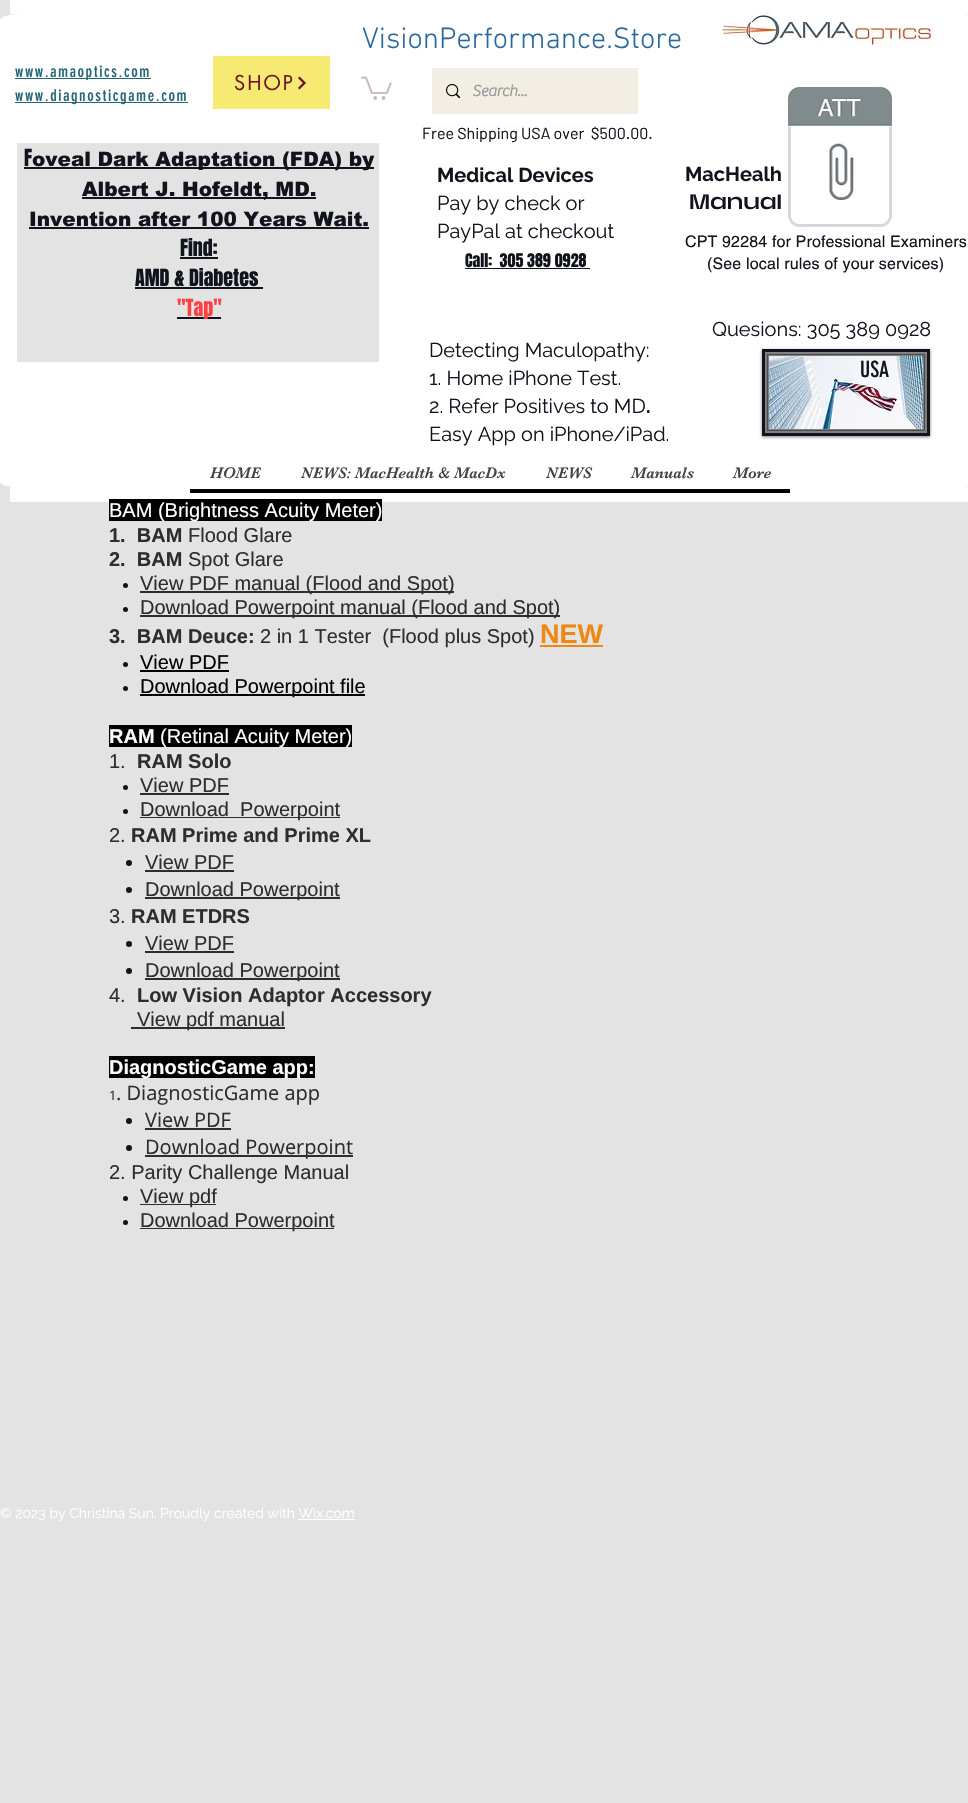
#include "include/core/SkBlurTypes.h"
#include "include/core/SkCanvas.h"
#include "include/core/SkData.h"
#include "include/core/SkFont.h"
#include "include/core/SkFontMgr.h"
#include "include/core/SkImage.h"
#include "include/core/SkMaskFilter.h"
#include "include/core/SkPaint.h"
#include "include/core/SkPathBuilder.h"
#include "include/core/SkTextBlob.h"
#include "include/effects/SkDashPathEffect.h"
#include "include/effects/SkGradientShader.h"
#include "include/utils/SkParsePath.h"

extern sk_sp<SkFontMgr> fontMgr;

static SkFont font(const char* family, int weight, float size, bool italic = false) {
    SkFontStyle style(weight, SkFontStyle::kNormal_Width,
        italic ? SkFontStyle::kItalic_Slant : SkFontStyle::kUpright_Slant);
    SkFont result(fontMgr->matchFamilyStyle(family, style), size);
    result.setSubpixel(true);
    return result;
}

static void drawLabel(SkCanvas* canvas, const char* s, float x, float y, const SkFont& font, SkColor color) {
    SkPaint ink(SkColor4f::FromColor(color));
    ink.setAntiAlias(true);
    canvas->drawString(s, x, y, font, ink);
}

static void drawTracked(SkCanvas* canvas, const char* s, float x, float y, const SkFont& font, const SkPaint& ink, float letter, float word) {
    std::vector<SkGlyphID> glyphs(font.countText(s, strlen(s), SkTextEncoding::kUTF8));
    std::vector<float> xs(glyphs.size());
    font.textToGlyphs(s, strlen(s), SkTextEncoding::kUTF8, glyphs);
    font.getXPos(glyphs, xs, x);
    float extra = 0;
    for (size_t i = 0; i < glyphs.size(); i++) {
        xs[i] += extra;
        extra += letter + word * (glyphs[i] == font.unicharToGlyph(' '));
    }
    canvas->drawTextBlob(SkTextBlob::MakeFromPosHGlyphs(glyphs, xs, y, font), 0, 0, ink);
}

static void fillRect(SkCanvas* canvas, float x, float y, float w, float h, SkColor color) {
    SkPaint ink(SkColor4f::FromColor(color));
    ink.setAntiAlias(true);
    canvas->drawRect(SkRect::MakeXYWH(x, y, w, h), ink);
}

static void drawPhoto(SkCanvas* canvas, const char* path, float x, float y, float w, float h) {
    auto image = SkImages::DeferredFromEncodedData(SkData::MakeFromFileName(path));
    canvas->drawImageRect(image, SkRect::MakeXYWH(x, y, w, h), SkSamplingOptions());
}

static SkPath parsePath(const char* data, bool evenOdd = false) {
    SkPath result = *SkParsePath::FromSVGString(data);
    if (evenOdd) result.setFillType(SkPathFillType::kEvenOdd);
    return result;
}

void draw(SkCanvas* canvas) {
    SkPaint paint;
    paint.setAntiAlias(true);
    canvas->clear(0xFFE3E3E3);
    fillRect(canvas, 10, 0, 958, 14, 0xFFFFFFFF);
    fillRect(canvas, 10, 487, 958, 15, 0xFFFFFFFF);
    paint.setColor(0xFFFFFFFF);
    canvas->drawPath(parsePath("M20 14C9 14 0 17 0 20V482C0 485 9 487 20 487H960C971 487 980 485 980 482V20C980 17 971 14 960 14Z"), paint);
    SkFont font1 = font("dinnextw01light", 300, 30);
    drawLabel(canvas, "VisionPerformance.Store", 362, 48, font1, 0xFF2B689C);
    drawPhoto(canvas, "assets/img1.png", 722, 12, 211, 35);
    fillRect(canvas, 15, 78, 136, 1, 0xFF256578);
    SkFont font2 = font("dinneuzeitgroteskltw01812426", 400, 16);
    paint.setColor(0xFF256578);
    drawTracked(canvas, "www.amaoptics.com", 15, 77, font2, paint, 1.6f, 0);
    fillRect(canvas, 15, 102, 173, 1, 0xFF256578);
    drawTracked(canvas, "www.diagnosticgame.com", 15, 101, font2, paint, 1.6f, 0);
    fillRect(canvas, 213, 56, 117, 53, 0xFFF7EA73);
    SkFont font3 = font("futura", 400, 20);
    paint.setColor(0xFF6E1623);
    drawTracked(canvas, "SHOP", 234, 90, font3, paint, 2, 0);
    drawPhoto(canvas, "assets/img2.png", 298, 76, 8, 14);
    drawPhoto(canvas, "assets/img3.png", 361, 76, 31, 24);
    fillRect(canvas, 432, 68, 206, 46, 0xFFF2EEE4);
    drawPhoto(canvas, "assets/img4.png", 446, 84, 14, 14);
    SkFont font4 = font("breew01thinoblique", 700, 16);
    drawLabel(canvas, "Search...", 472, 96, font4, 0xFF999999);
    SkFont font5 = font("Barlow", 400, 16);
    drawLabel(canvas, "Free Shipping USA over  $500.00.", 422, 139, font5, 0xFF11141D);
    fillRect(canvas, 17, 143, 362, 219, 0xFFE3E3E3);
    SkFont font6 = font("Anton", 400, 20);
    drawLabel(canvas, "F", 24, 166, font6, 0xFF11141D);
    fillRect(canvas, 24, 167, 350, 2, 0xFF11141D);
    SkFont font7 = font("arial", 900, 20);
    drawLabel(canvas, "oveal Dark Adaptation (FDA) by", 32, 166, font7, 0xFF11141D);
    fillRect(canvas, 82, 197, 234, 2, 0xFF11141D);
    drawLabel(canvas, "Albert J. Hofeldt, MD.", 82, 196, font7, 0xFF11141D);
    drawLabel(canvas, "Invention after 100 Years Wait.", 29, 226, font7, 0xFF11141D);
    fillRect(canvas, 29, 227, 340, 2, 0xFF11141D);
    drawLabel(canvas, "Find:", 180, 256, font6, 0xFF11141D);
    fillRect(canvas, 180, 257, 38, 2, 0xFF11141D);
    drawLabel(canvas, "AMD & Diabetes", 135, 286, font6, 0xFF11141D);
    fillRect(canvas, 135, 287, 128, 2, 0xFF11141D);
    fillRect(canvas, 177, 317, 44, 2, 0xFF11141D);
    drawLabel(canvas, "\"Tap\"", 177, 316, font6, 0xFFFF4040);
    SkFont font8 = font("Raleway", 700, 20);
    drawLabel(canvas, "Medical Devices", 437, 182, font8, 0xFF11141D);
    SkFont font9 = font("Raleway", 400, 20);
    drawLabel(canvas, "Pay by check or", 437, 210, font9, 0xFF11141D);
    drawLabel(canvas, "PayPal at checkout", 437, 238, font9, 0xFF11141D);
    SkFont font10 = font("Anton", 400, 16);
    drawLabel(canvas, "Call:  305 389 0928", 465, 267, font10, 0xFF11141D);
    fillRect(canvas, 465, 268, 125, 1, 0xFF11141D);
    drawLabel(canvas, "MacHealh", 685, 181, font8, 0xFF11141D);
    SkFont font11 = font("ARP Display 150", 700, 18);
    drawLabel(canvas, "Manual", 689, 209, font11, 0xFF11141D);
    drawPhoto(canvas, "assets/img5.png", 788, 87, 104, 140);
    SkFont font12 = font("helvetica", 400, 16);
    paint.setColor(0xFF11141D);
    drawTracked(canvas, "CPT 92284 for Professional Examiners", 685, 247, font12, paint, 0.15f, 0);
    drawTracked(canvas, "(See local rules of your services)", 707, 269, font12, paint, 0.15f, 0);
    drawLabel(canvas, "Quesions: 305 389 0928", 712, 336, font9, 0xFF11141D);
    drawLabel(canvas, "Detecting Maculopathy:", 429, 357, font9, 0xFF11141D);
    drawLabel(canvas, "1. Home iPhone Test.", 429, 385, font9, 0xFF11141D);
    drawLabel(canvas, "2. Refer Positives to MD", 429, 413, font9, 0xFF11141D);
    drawLabel(canvas, ".", 646, 413, font8, 0xFF11141D);
    drawLabel(canvas, "Easy App on iPhone/iPad.", 429, 441, font9, 0xFF11141D);
    paint.setColor(0x80000000);
    paint.setMaskFilter(SkMaskFilter::MakeBlur(kNormal_SkBlurStyle, 1.5f));
    canvas->drawRect(SkRect::MakeXYWH(762, 350, 168, 87), paint);
    paint.setMaskFilter(nullptr);
    paint.setStroke(true);
    paint.setStrokeWidth(3);
    paint.setColor(0xFF11141D);
    canvas->drawRect(SkRect::MakeXYWH(763.5f, 350.5f, 165, 84), paint);
    drawPhoto(canvas, "assets/img6.png", 769, 356, 154, 73);
    paint.setStrokeWidth(1);
    paint.setColor(0xFF4B4B4B);
    canvas->drawRect(SkRect::MakeXYWH(767.5f, 354.5f, 157, 76), paint);
    SkFont font13 = font("dinneuzeitgroteskltw01812426", 400, 22);
    drawLabel(canvas, "USA", 860, 377, font13, 0xFF11141D);
    fillRect(canvas, 190, 489, 600, 4, 0xFF000000);
    SkFont font14 = font("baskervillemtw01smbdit", 400, 16);
    drawLabel(canvas, "HOME", 210, 478, font14, 0xFF444444);
    drawLabel(canvas, "NEWS: MacHealth & MacDx", 301, 478, font14, 0xFF444444);
    drawLabel(canvas, "NEWS", 546, 478, font14, 0xFF444444);
    drawLabel(canvas, "Manuals", 631, 478, font14, 0xFF444444);
    drawLabel(canvas, "More", 733, 478, font14, 0xFF444444);
    fillRect(canvas, 109, 499, 273, 22, 0xFF000000);
    SkFont font15 = font("Liberation Sans", 400, 20);
    drawLabel(canvas, "BAM (Brightness Acuity Meter)", 109, 517, font15, 0xFFFFFFFF);
    SkFont font16 = font("Liberation Sans", 700, 20);
    drawLabel(canvas, "1.  BAM", 109, 542, font16, 0xFF2D2D2D);
    drawLabel(canvas, "Flood Glare", 188, 542, font15, 0xFF2D2D2D);
    drawLabel(canvas, "2.  BAM", 109, 566, font16, 0xFF2D2D2D);
    drawLabel(canvas, "Spot Glare", 188, 566, font15, 0xFF2D2D2D);
    paint.setStroke(false);
    paint.setColor(0xFF11141D);
    canvas->drawCircle(125.5f, 585.5f, 2.5f, paint);
    fillRect(canvas, 140, 591, 314, 2, 0xFF2D2D2D);
    drawLabel(canvas, "View PDF manual (Flood and Spot)", 140, 590, font15, 0xFF2D2D2D);
    canvas->drawCircle(125.5f, 609.5f, 2.5f, paint);
    fillRect(canvas, 140, 615, 420, 2, 0xFF2D2D2D);
    drawLabel(canvas, "Download Powerpoint manual (Flood and Spot)", 140, 614, font15, 0xFF2D2D2D);
    drawLabel(canvas, "3.  BAM Deuce:", 109, 643, font16, 0xFF2D2D2D);
    drawLabel(canvas, "2 in 1 Tester  (Flood plus Spot)", 260, 643, font15, 0xFF2D2D2D);
    fillRect(canvas, 540, 645, 63, 2, 0xFFED8815);
    SkFont font17 = font("Liberation Sans", 700, 27);
    drawLabel(canvas, "NEW", 540, 643, font17, 0xFFED8815);
    canvas->drawCircle(125.5f, 664.5f, 2.5f, paint);
    drawLabel(canvas, "View PDF", 140, 669, font15, 0xFF000000);
    fillRect(canvas, 140, 670, 89, 2, 0xFF000000);
    canvas->drawCircle(125.5f, 688.5f, 2.5f, paint);
    fillRect(canvas, 140, 694, 225, 2, 0xFF000000);
    drawLabel(canvas, "Download Powerpoint file", 140, 693, font15, 0xFF000000);
    fillRect(canvas, 109, 725, 243, 22, 0xFF000000);
    drawLabel(canvas, "RAM", 109, 743, font16, 0xFFFFFFFF);
    drawLabel(canvas, "(Retinal Acuity Meter)", 160, 743, font15, 0xFFFFFFFF);
    drawLabel(canvas, "1.", 109, 768, font15, 0xFF2D2D2D);
    drawLabel(canvas, "RAM Solo", 137, 768, font16, 0xFF2D2D2D);
    canvas->drawCircle(125.5f, 787.5f, 2.5f, paint);
    drawLabel(canvas, "View PDF", 140, 792, font15, 0xFF2D2D2D);
    fillRect(canvas, 140, 793, 89, 2, 0xFF2D2D2D);
    canvas->drawCircle(125.5f, 811.5f, 2.5f, paint);
    fillRect(canvas, 140, 817, 200, 1, 0xFF2D2D2D);
    drawLabel(canvas, "Download  Powerpoint", 140, 816, font15, 0xFF2D2D2D);
    drawLabel(canvas, "2.", 109, 842, font15, 0xFF2D2D2D);
    drawLabel(canvas, "RAM Prime and Prime XL", 131, 842, font16, 0xFF2D2D2D);
    canvas->drawCircle(129, 863, 3, paint);
    drawLabel(canvas, "View PDF", 145, 869, font15, 0xFF2D2D2D);
    fillRect(canvas, 145, 870, 89, 2, 0xFF2D2D2D);
    canvas->drawCircle(129, 890, 3, paint);
    fillRect(canvas, 145, 897, 195, 2, 0xFF2D2D2D);
    drawLabel(canvas, "Download Powerpoint", 145, 896, font15, 0xFF2D2D2D);
    drawLabel(canvas, "3.", 109, 923, font15, 0xFF2D2D2D);
    drawLabel(canvas, "RAM ETDRS", 131, 923, font16, 0xFF2D2D2D);
    canvas->drawCircle(129, 944, 3, paint);
    drawLabel(canvas, "View PDF", 145, 950, font15, 0xFF2D2D2D);
    fillRect(canvas, 145, 951, 89, 2, 0xFF2D2D2D);
    canvas->drawCircle(129, 971, 3, paint);
    fillRect(canvas, 145, 978, 195, 2, 0xFF2D2D2D);
    drawLabel(canvas, "Download Powerpoint", 145, 977, font15, 0xFF2D2D2D);
    drawLabel(canvas, "4.", 109, 1002, font15, 0xFF2D2D2D);
    drawLabel(canvas, "Low Vision Adaptor Accessory", 137, 1002, font16, 0xFF2D2D2D);
    fillRect(canvas, 131, 1027, 154, 2, 0xFF2D2D2D);
    drawLabel(canvas, "View pdf manual", 137, 1026, font15, 0xFF2D2D2D);
    fillRect(canvas, 109, 1056, 206, 22, 0xFF000000);
    drawLabel(canvas, "DiagnosticGame app:", 109, 1074, font16, 0xFFFFFFFF);
    SkFont font18 = font("Open Sans", 400, 13);
    drawLabel(canvas, "1", 109, 1100, font18, 0xFF2D2D2D);
    SkFont font19 = font("Open Sans", 400, 20);
    drawLabel(canvas, ". DiagnosticGame app", 116, 1100, font19, 0xFF2D2D2D);
    canvas->drawCircle(129, 1121, 3, paint);
    drawLabel(canvas, "View PDF", 145, 1127, font19, 0xFF2D2D2D);
    fillRect(canvas, 145, 1128, 86, 2, 0xFF2D2D2D);
    canvas->drawCircle(129, 1148, 3, paint);
    fillRect(canvas, 145, 1155, 208, 2, 0xFF2D2D2D);
    drawLabel(canvas, "Download Powerpoint", 145, 1154, font19, 0xFF2D2D2D);
    drawLabel(canvas, "2. Parity Challenge Manual", 109, 1179, font15, 0xFF2D2D2D);
    canvas->drawCircle(125.5f, 1198.5f, 2.5f, paint);
    fillRect(canvas, 140, 1204, 76, 1, 0xFF2D2D2D);
    drawLabel(canvas, "View pdf", 140, 1203, font15, 0xFF2D2D2D);
    canvas->drawCircle(125.5f, 1222.5f, 2.5f, paint);
    fillRect(canvas, 140, 1228, 194, 1, 0xFF2D2D2D);
    drawLabel(canvas, "Download Powerpoint", 140, 1227, font15, 0xFF2D2D2D);
    SkFont font20 = font("Raleway", 400, 14);
    drawLabel(canvas, "© 2023 by Christina Sun. Proudly created with Wix.com", 0, 1518, font20, 0xFFFFFFFF);
    fillRect(canvas, 298, 1519, 57, 1, 0xFFFFFFFF);
}
